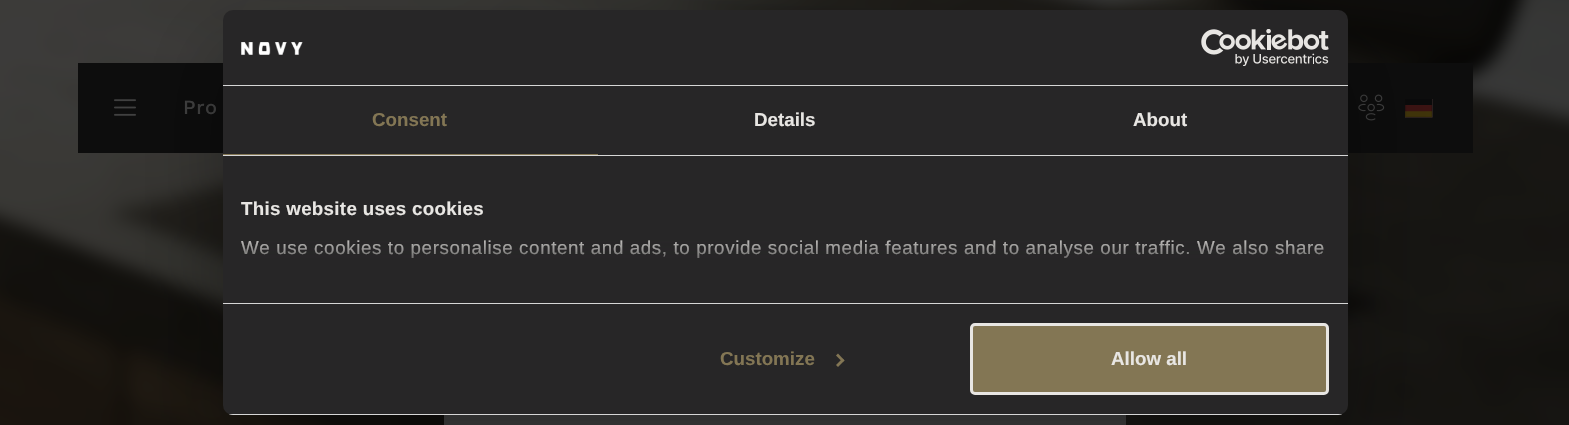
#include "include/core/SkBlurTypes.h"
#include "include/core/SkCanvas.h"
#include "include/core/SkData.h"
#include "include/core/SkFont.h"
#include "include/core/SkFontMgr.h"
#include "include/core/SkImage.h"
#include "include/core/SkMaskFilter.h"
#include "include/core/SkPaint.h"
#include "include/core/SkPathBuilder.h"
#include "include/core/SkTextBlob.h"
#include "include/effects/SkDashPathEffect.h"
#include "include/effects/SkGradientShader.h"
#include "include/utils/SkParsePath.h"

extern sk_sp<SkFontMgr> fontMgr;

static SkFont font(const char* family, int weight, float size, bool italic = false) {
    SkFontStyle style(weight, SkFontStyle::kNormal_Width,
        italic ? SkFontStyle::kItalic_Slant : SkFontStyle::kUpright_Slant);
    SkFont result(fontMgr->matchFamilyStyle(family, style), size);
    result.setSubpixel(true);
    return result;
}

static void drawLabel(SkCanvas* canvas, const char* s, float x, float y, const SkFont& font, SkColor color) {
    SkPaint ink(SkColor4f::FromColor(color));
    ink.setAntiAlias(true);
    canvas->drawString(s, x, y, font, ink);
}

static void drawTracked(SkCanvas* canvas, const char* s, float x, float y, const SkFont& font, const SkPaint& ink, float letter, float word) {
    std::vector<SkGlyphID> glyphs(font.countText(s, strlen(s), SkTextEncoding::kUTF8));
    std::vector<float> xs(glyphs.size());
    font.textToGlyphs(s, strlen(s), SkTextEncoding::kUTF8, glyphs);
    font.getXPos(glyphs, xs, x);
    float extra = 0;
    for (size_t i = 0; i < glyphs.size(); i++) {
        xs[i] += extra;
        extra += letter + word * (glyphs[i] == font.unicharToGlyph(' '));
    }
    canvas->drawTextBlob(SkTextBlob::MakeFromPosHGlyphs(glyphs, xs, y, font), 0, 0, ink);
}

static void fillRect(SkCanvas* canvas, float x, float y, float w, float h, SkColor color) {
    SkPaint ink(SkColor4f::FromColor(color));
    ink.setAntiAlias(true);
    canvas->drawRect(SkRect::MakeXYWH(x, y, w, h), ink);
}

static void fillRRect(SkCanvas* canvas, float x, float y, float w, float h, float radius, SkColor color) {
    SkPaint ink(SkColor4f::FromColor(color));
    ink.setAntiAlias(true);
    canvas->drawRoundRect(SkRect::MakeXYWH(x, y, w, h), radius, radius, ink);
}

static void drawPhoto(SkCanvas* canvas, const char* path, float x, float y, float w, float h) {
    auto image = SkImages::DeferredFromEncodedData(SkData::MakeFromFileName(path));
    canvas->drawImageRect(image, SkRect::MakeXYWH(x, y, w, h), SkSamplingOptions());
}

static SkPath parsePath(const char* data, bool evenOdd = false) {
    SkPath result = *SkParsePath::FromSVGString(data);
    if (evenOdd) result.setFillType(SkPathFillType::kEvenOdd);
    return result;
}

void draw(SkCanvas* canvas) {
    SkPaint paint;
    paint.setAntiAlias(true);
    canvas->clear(0xFFFFFFFF);
    drawPhoto(canvas, "assets/img1.png", 0, 0, 1569, 425);
    fillRect(canvas, 78, 63, 1395, 90, 0xFF0D0D0D);
    drawPhoto(canvas, "assets/img2.png", 114, 99, 22, 17);
    SkFont font1 = font("Work Sans", 500, 20);
    paint.setColor(0xFF404040);
    drawTracked(canvas, "Pro", 183, 114, font1, paint, 0.62f, 0);
    drawPhoto(canvas, "assets/img3.png", 1358, 94, 27, 27);
    drawPhoto(canvas, "assets/img4.png", 1405, 99, 28, 19);
    fillRect(canvas, 444, 415, 682, 10, 0xFF404040);
    paint.setColor(0x4D000000);
    paint.setMaskFilter(SkMaskFilter::MakeBlur(kNormal_SkBlurStyle, 42.5f));
    canvas->drawRoundRect(SkRect::MakeXYWH(223, 50, 1125, 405), 10, 10, paint);
    paint.setMaskFilter(nullptr);
    fillRRect(canvas, 223, 10, 1125, 405, 10, 0xFF272627);
    fillRect(canvas, 223, 85, 1125, 1, 0xFFD6D6D6);
    drawPhoto(canvas, "assets/img5.png", 241, 42, 62, 13);
    drawPhoto(canvas, "assets/img6.png", 1201, 29, 128, 37);
    fillRect(canvas, 223, 155, 1125, 1, 0xFFD6D6D6);
    fillRect(canvas, 223, 154, 375, 1, 0xFF837654);
    SkFont font2 = font("Liberation Sans", 700, 18.75f);
    drawLabel(canvas, "Consent", 372, 126, font2, 0xFF837654);
    drawLabel(canvas, "Details", 754, 126, font2, 0xFFE8E6E3);
    drawLabel(canvas, "About", 1133, 126, font2, 0xFFE8E6E3);
    fillRect(canvas, 223, 303, 1125, 1, 0xFFD6D6D6);
    paint.setColor(0xFFE8E6E3);
    drawTracked(canvas, "This website uses cookies", 241, 215, font2, paint, 0.3f, 0);
    SkFont font3 = font("Liberation Sans", 400, 18.75f);
    drawTracked(canvas, "We use cookies to personalise content and ads, to provide social media features and to analyse our traffic. We also share", 241, 254, font3, paint, 0.62f, 0);
    {
        const SkColor colors[] = {0xFF272627, 0xCC272627, 0x00272627};
        const float stops[] = {0, 0.5f, 1};
        const SkPoint ends[] = {{777, 303}, {777, 230}};
        paint.setShader(SkGradientShader::MakeLinear(ends, colors, stops, 3, SkTileMode::kClamp));
        paint.setAlpha(255);
    }
    canvas->drawRect(SkRect::MakeXYWH(241, 240, 1084, 18), paint);
    canvas->save();
    canvas->clipPath(parsePath("M233 10H1338C1343.5 10 1348 14.5 1348 20V405C1348 410.5 1343.5 415 1338 415H233C227.5 415 223 410.5 223 405V20C223 14.5 227.5 10 233 10Z"), true);
    fillRect(canvas, 223, 414, 1125, 1, 0xFFD6D6D6);
    canvas->restore();
    drawLabel(canvas, "Customize", 720, 365, font2, 0xFF837654);
    paint.setShader(nullptr);
    paint.setColor(0xFF837654);
    canvas->drawPath(parsePath("M838 353.5L844.5 360.5L842.5 362L836 355.5Z"), paint);
    canvas->drawPath(parsePath("M842.5 358.5L844.5 360.5L838 367L836 365Z"), paint);
    canvas->drawRoundRect(SkRect::MakeXYWH(971.5f, 324.5f, 356, 69), 3.5f, 3.5f, paint);
    paint.setStroke(true);
    paint.setStrokeWidth(3);
    paint.setColor(0xFFE8E6E3);
    canvas->drawRoundRect(SkRect::MakeXYWH(971.5f, 324.5f, 356, 69), 3.5f, 3.5f, paint);
    drawLabel(canvas, "Allow all", 1111, 365, font2, 0xFFE8E6E3);
}
